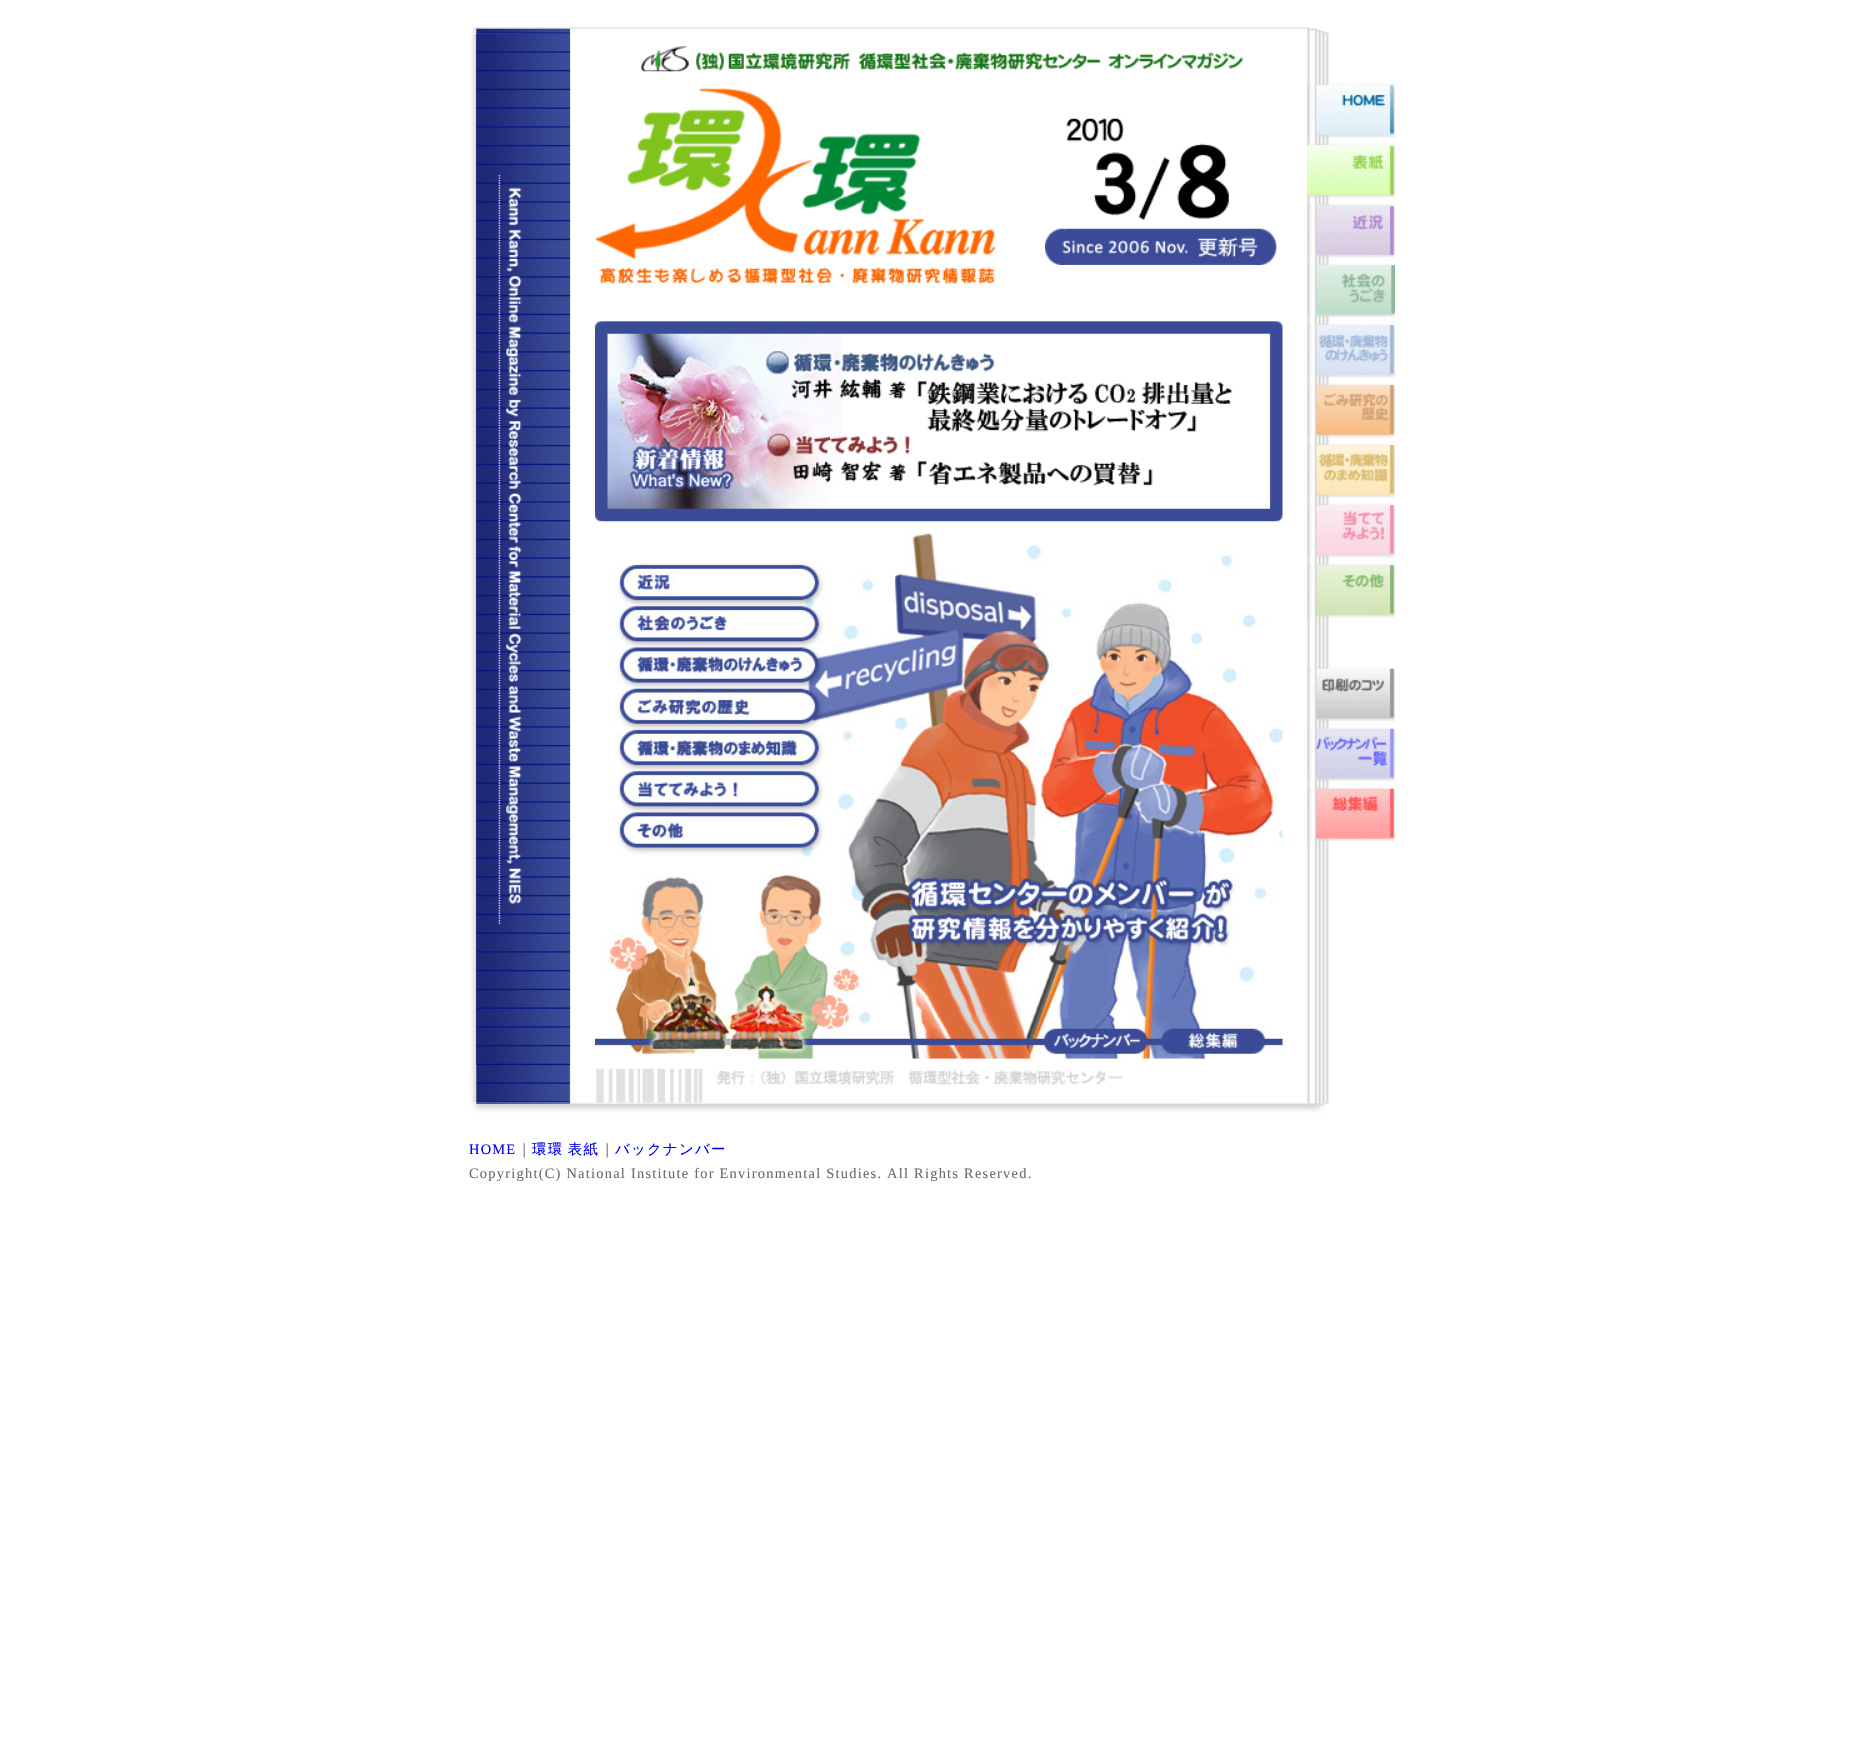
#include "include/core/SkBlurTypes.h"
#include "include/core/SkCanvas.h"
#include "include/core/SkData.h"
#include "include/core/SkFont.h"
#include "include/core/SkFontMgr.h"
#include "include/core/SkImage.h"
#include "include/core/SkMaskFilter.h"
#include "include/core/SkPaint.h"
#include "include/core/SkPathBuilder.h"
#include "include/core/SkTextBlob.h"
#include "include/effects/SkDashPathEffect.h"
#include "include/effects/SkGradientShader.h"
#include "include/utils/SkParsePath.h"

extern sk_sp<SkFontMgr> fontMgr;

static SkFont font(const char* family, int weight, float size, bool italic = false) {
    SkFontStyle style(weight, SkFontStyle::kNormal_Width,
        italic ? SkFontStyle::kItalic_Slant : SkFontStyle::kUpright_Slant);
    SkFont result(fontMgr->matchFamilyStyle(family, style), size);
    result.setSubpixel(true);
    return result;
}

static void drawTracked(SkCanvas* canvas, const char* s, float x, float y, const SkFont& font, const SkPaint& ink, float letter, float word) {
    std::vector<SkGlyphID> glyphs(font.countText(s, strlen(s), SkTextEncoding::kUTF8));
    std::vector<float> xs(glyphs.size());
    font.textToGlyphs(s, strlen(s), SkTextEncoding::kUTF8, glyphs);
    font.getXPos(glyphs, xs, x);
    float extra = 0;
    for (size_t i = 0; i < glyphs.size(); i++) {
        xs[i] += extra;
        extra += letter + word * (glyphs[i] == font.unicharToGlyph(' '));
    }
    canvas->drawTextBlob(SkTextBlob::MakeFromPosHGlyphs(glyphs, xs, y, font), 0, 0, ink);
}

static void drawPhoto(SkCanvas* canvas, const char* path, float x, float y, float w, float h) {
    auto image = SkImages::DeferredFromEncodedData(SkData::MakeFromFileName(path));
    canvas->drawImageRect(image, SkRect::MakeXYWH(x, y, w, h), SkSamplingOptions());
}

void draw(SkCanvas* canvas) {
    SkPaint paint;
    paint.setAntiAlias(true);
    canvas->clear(0xFFFFFFFF);
    drawPhoto(canvas, "assets/img2.png", 470, 33, 859, 1070);
    drawPhoto(canvas, "assets/img3.png", 476, 33, 94, 1032);
    drawPhoto(canvas, "assets/img1.png", 471, 27, 858, 7);
    drawPhoto(canvas, "assets/img4.png", 595, 46, 648, 238);
    drawPhoto(canvas, "assets/img5.png", 1045, 118, 232, 147);
    drawPhoto(canvas, "assets/img6.png", 595, 321, 688, 201);
    drawPhoto(canvas, "assets/img7.png", 595, 533, 688, 526);
    drawPhoto(canvas, "assets/img21.png", 471, 1102, 858, 11);
    drawPhoto(canvas, "assets/img8.png", 596, 1058, 609, 45);
    drawPhoto(canvas, "assets/img9.png", 1307, 83, 88, 55);
    drawPhoto(canvas, "assets/img10.png", 1307, 143, 88, 55);
    drawPhoto(canvas, "assets/img11.png", 1307, 203, 88, 55);
    drawPhoto(canvas, "assets/img12.png", 1307, 263, 88, 55);
    drawPhoto(canvas, "assets/img13.png", 1307, 323, 88, 55);
    drawPhoto(canvas, "assets/img14.png", 1307, 383, 88, 55);
    drawPhoto(canvas, "assets/img15.png", 1307, 443, 88, 55);
    drawPhoto(canvas, "assets/img16.png", 1307, 503, 88, 55);
    drawPhoto(canvas, "assets/img17.png", 1307, 563, 88, 55);
    drawPhoto(canvas, "assets/img18.png", 1307, 667, 88, 55);
    drawPhoto(canvas, "assets/img19.png", 1307, 727, 88, 55);
    drawPhoto(canvas, "assets/img20.png", 1307, 787, 88, 55);
    SkFont font1 = font("Liberation Serif", 400, 14.4f);
    paint.setColor(0xFF0000EE);
    drawTracked(canvas, "HOME", 469, 1154, font1, paint, 1.25f, 0);
    SkFont font2 = font("WenQuanYi Zen Hei", 500, 14.4f);
    paint.setColor(0xFF696969);
    drawTracked(canvas, "｜", 517, 1154, font2, paint, 1.25f, 0);
    paint.setColor(0xFF0000EE);
    drawTracked(canvas, "環環 表紙", 532, 1154, font2, paint, 1.25f, -1);
    paint.setColor(0xFF696969);
    drawTracked(canvas, "｜", 600, 1154, font2, paint, 1.25f, 0);
    paint.setColor(0xFF0000EE);
    drawTracked(canvas, "バックナンバー", 615, 1154, font2, paint, 1.25f, 0);
    paint.setColor(0xFF696969);
    drawTracked(canvas, "Copyright(C) National Institute for Environmental Studies. All Rights Reserved.", 469, 1178, font1, paint, 1.25f, 0);
}
